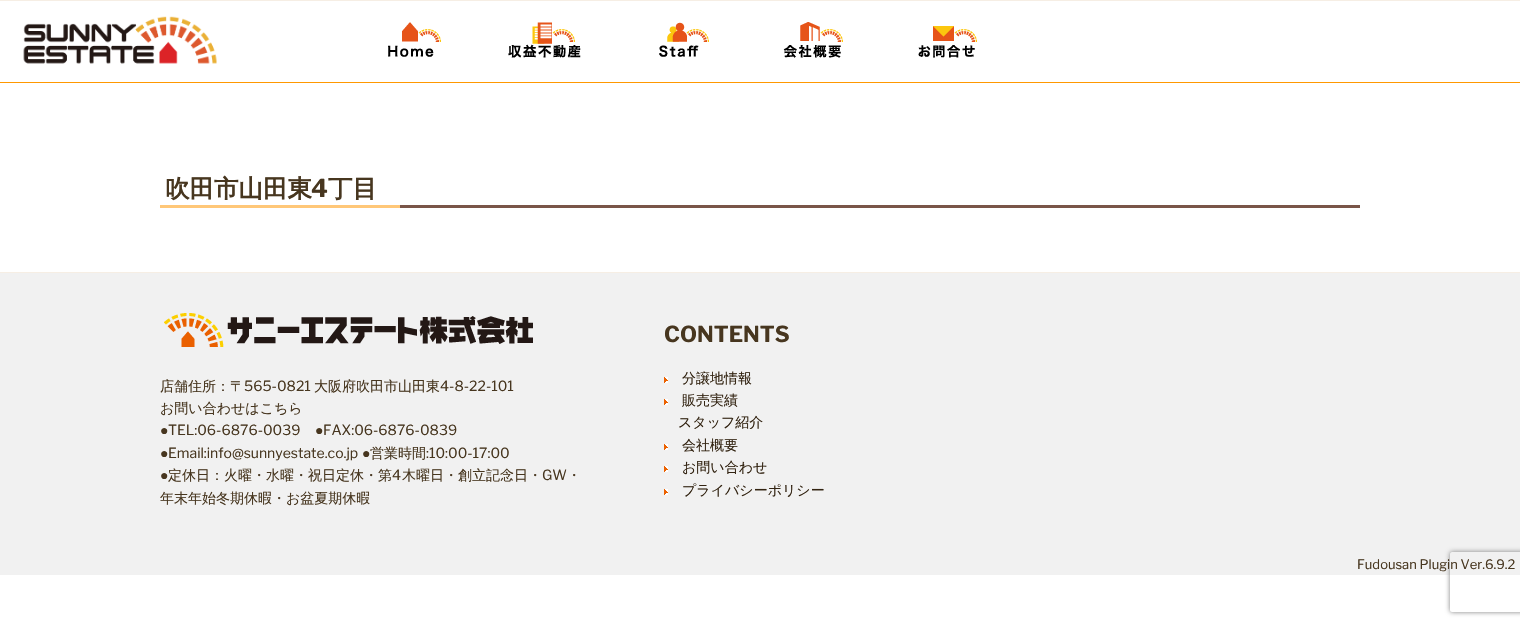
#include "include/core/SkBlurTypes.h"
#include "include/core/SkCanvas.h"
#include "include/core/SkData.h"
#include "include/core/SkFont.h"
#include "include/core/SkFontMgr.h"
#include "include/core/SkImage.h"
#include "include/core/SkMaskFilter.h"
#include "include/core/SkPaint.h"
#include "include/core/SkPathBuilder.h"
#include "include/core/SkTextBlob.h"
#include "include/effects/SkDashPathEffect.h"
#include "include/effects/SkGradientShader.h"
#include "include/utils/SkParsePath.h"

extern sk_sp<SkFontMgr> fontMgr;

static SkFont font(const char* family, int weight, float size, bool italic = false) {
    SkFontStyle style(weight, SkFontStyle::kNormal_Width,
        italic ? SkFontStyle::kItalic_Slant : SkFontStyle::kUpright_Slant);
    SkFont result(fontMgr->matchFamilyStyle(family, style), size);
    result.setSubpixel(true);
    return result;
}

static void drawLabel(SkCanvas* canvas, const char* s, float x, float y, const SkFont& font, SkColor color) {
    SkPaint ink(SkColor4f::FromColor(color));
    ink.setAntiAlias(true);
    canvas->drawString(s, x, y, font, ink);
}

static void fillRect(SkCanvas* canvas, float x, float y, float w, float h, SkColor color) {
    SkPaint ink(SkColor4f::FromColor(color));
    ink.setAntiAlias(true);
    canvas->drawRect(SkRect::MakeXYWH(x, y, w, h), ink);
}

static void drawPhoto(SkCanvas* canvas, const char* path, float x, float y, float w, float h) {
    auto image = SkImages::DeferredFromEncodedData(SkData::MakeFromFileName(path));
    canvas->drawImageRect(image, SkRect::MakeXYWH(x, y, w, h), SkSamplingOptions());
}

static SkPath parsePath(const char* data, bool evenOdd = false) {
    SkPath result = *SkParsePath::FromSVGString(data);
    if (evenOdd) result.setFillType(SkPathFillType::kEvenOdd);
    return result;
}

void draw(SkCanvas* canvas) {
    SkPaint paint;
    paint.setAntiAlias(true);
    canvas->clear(0xFFFFFFFF);
    fillRect(canvas, 0, 0, 1520, 1, 0xFFF6EEE4);
    fillRect(canvas, 0, 82, 1520, 1, 0xFFFF9800);
    drawPhoto(canvas, "assets/img1.png", 388, 22, 53, 35);
    drawPhoto(canvas, "assets/img2.png", 508, 22, 73, 36);
    drawPhoto(canvas, "assets/img3.png", 659, 22, 50, 35);
    drawPhoto(canvas, "assets/img4.png", 783, 22, 60, 36);
    drawPhoto(canvas, "assets/img5.png", 918, 26, 59, 32);
    drawPhoto(canvas, "assets/img6.png", 23, 16, 194, 48);
    fillRect(canvas, 400, 205, 960, 3, 0xFF795548);
    SkFont font1 = font("WenQuanYi Zen Hei", 700, 24.5f);
    drawLabel(canvas, "吹田市山田東", 165, 197, font1, 0xFF47361F);
    SkFont font2 = font("Libre Franklin", 700, 24.5f);
    drawLabel(canvas, "4", 311, 197, font2, 0xFF47361F);
    drawLabel(canvas, "丁目", 328, 197, font1, 0xFF47361F);
    fillRect(canvas, 160, 205, 240, 3, 0xFFFFC778);
    fillRect(canvas, 0, 273, 1520, 302, 0xFFF1F1F1);
    fillRect(canvas, 0, 272, 1520, 1, 0xFFF6EEE4);
    drawPhoto(canvas, "assets/img7.png", 164, 313, 369, 34);
    SkFont font3 = font("WenQuanYi Zen Hei", 500, 14);
    drawLabel(canvas, "店舗住所：〒", 160, 391, font3, 0xFF47361F);
    SkFont font4 = font("Libre Franklin", 400, 14);
    drawLabel(canvas, "565-0821", 244, 391, font4, 0xFF47361F);
    drawLabel(canvas, "大阪府吹田市山田東", 314, 391, font3, 0xFF47361F);
    drawLabel(canvas, "4-8-22-101", 440, 391, font4, 0xFF47361F);
    drawLabel(canvas, "お問い合わせはこちら", 160, 413, font3, 0xFF47361F);
    SkFont font5 = font("Liberation Sans", 400, 14);
    drawLabel(canvas, "●", 160, 435, font5, 0xFF47361F);
    drawLabel(canvas, "TEL:06-6876-0039", 168, 435, font4, 0xFF47361F);
    drawLabel(canvas, "●", 315, 435, font5, 0xFF47361F);
    drawLabel(canvas, "FAX:06-6876-0839", 323, 435, font4, 0xFF47361F);
    drawLabel(canvas, "●", 160, 458, font5, 0xFF47361F);
    drawLabel(canvas, "Email:info@sunnyestate.co.jp", 168, 458, font4, 0xFF47361F);
    drawLabel(canvas, "●", 362, 458, font5, 0xFF47361F);
    drawLabel(canvas, "営業時間", 370, 458, font3, 0xFF47361F);
    drawLabel(canvas, ":10:00-17:00", 426, 458, font4, 0xFF47361F);
    drawLabel(canvas, "●", 160, 480, font5, 0xFF47361F);
    drawLabel(canvas, "定休日：火曜・水曜・祝日定休・第", 168, 480, font3, 0xFF47361F);
    drawLabel(canvas, "4", 392, 480, font4, 0xFF47361F);
    drawLabel(canvas, "木曜日・創立記念日・", 402, 480, font3, 0xFF47361F);
    drawLabel(canvas, "GW", 542, 480, font4, 0xFF47361F);
    drawLabel(canvas, "・", 567, 480, font3, 0xFF47361F);
    drawLabel(canvas, "年末年始冬期休暇・お盆夏期休暇", 160, 503, font3, 0xFF47361F);
    SkFont font6 = font("Libre Franklin", 700, 22);
    drawLabel(canvas, "CONTENTS", 664, 342, font6, 0xFF47361F);
    drawPhoto(canvas, "assets/img8.png", 664, 377, 4, 6);
    drawLabel(canvas, "分譲地情報", 682, 383, font3, 0xFF322311);
    drawPhoto(canvas, "assets/img8.png", 664, 399, 4, 6);
    drawLabel(canvas, "販売実績", 682, 405, font3, 0xFF322311);
    drawLabel(canvas, "スタッフ紹介", 678, 427, font3, 0xFF322311);
    drawPhoto(canvas, "assets/img8.png", 664, 444, 4, 6);
    drawLabel(canvas, "会社概要", 682, 450, font3, 0xFF322311);
    drawPhoto(canvas, "assets/img8.png", 664, 466, 4, 6);
    drawLabel(canvas, "お問い合わせ", 682, 472, font3, 0xFF322311);
    drawPhoto(canvas, "assets/img8.png", 664, 489, 4, 6);
    drawLabel(canvas, "プライバシーポリシー", 682, 495, font3, 0xFF322311);
    canvas->save();
    canvas->clipPath(parsePath("M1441 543H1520V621H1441ZM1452 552H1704C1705 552 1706 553 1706 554V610C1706 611 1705 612 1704 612H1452C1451 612 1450 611 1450 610V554C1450 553 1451 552 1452 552Z", true), true);
    paint.setColor(0xFF808080);
    paint.setMaskFilter(SkMaskFilter::MakeBlur(kNormal_SkBlurStyle, 2.5f));
    canvas->drawRoundRect(SkRect::MakeXYWH(1450, 552, 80, 60), 2, 2, paint);
    paint.setMaskFilter(nullptr);
    canvas->restore();
    SkFont font7 = font("Libre Franklin", 400, 13);
    drawLabel(canvas, "Fudousan Plugin Ver.6.9.2", 1357, 569, font7, 0xFF47361F);
}
